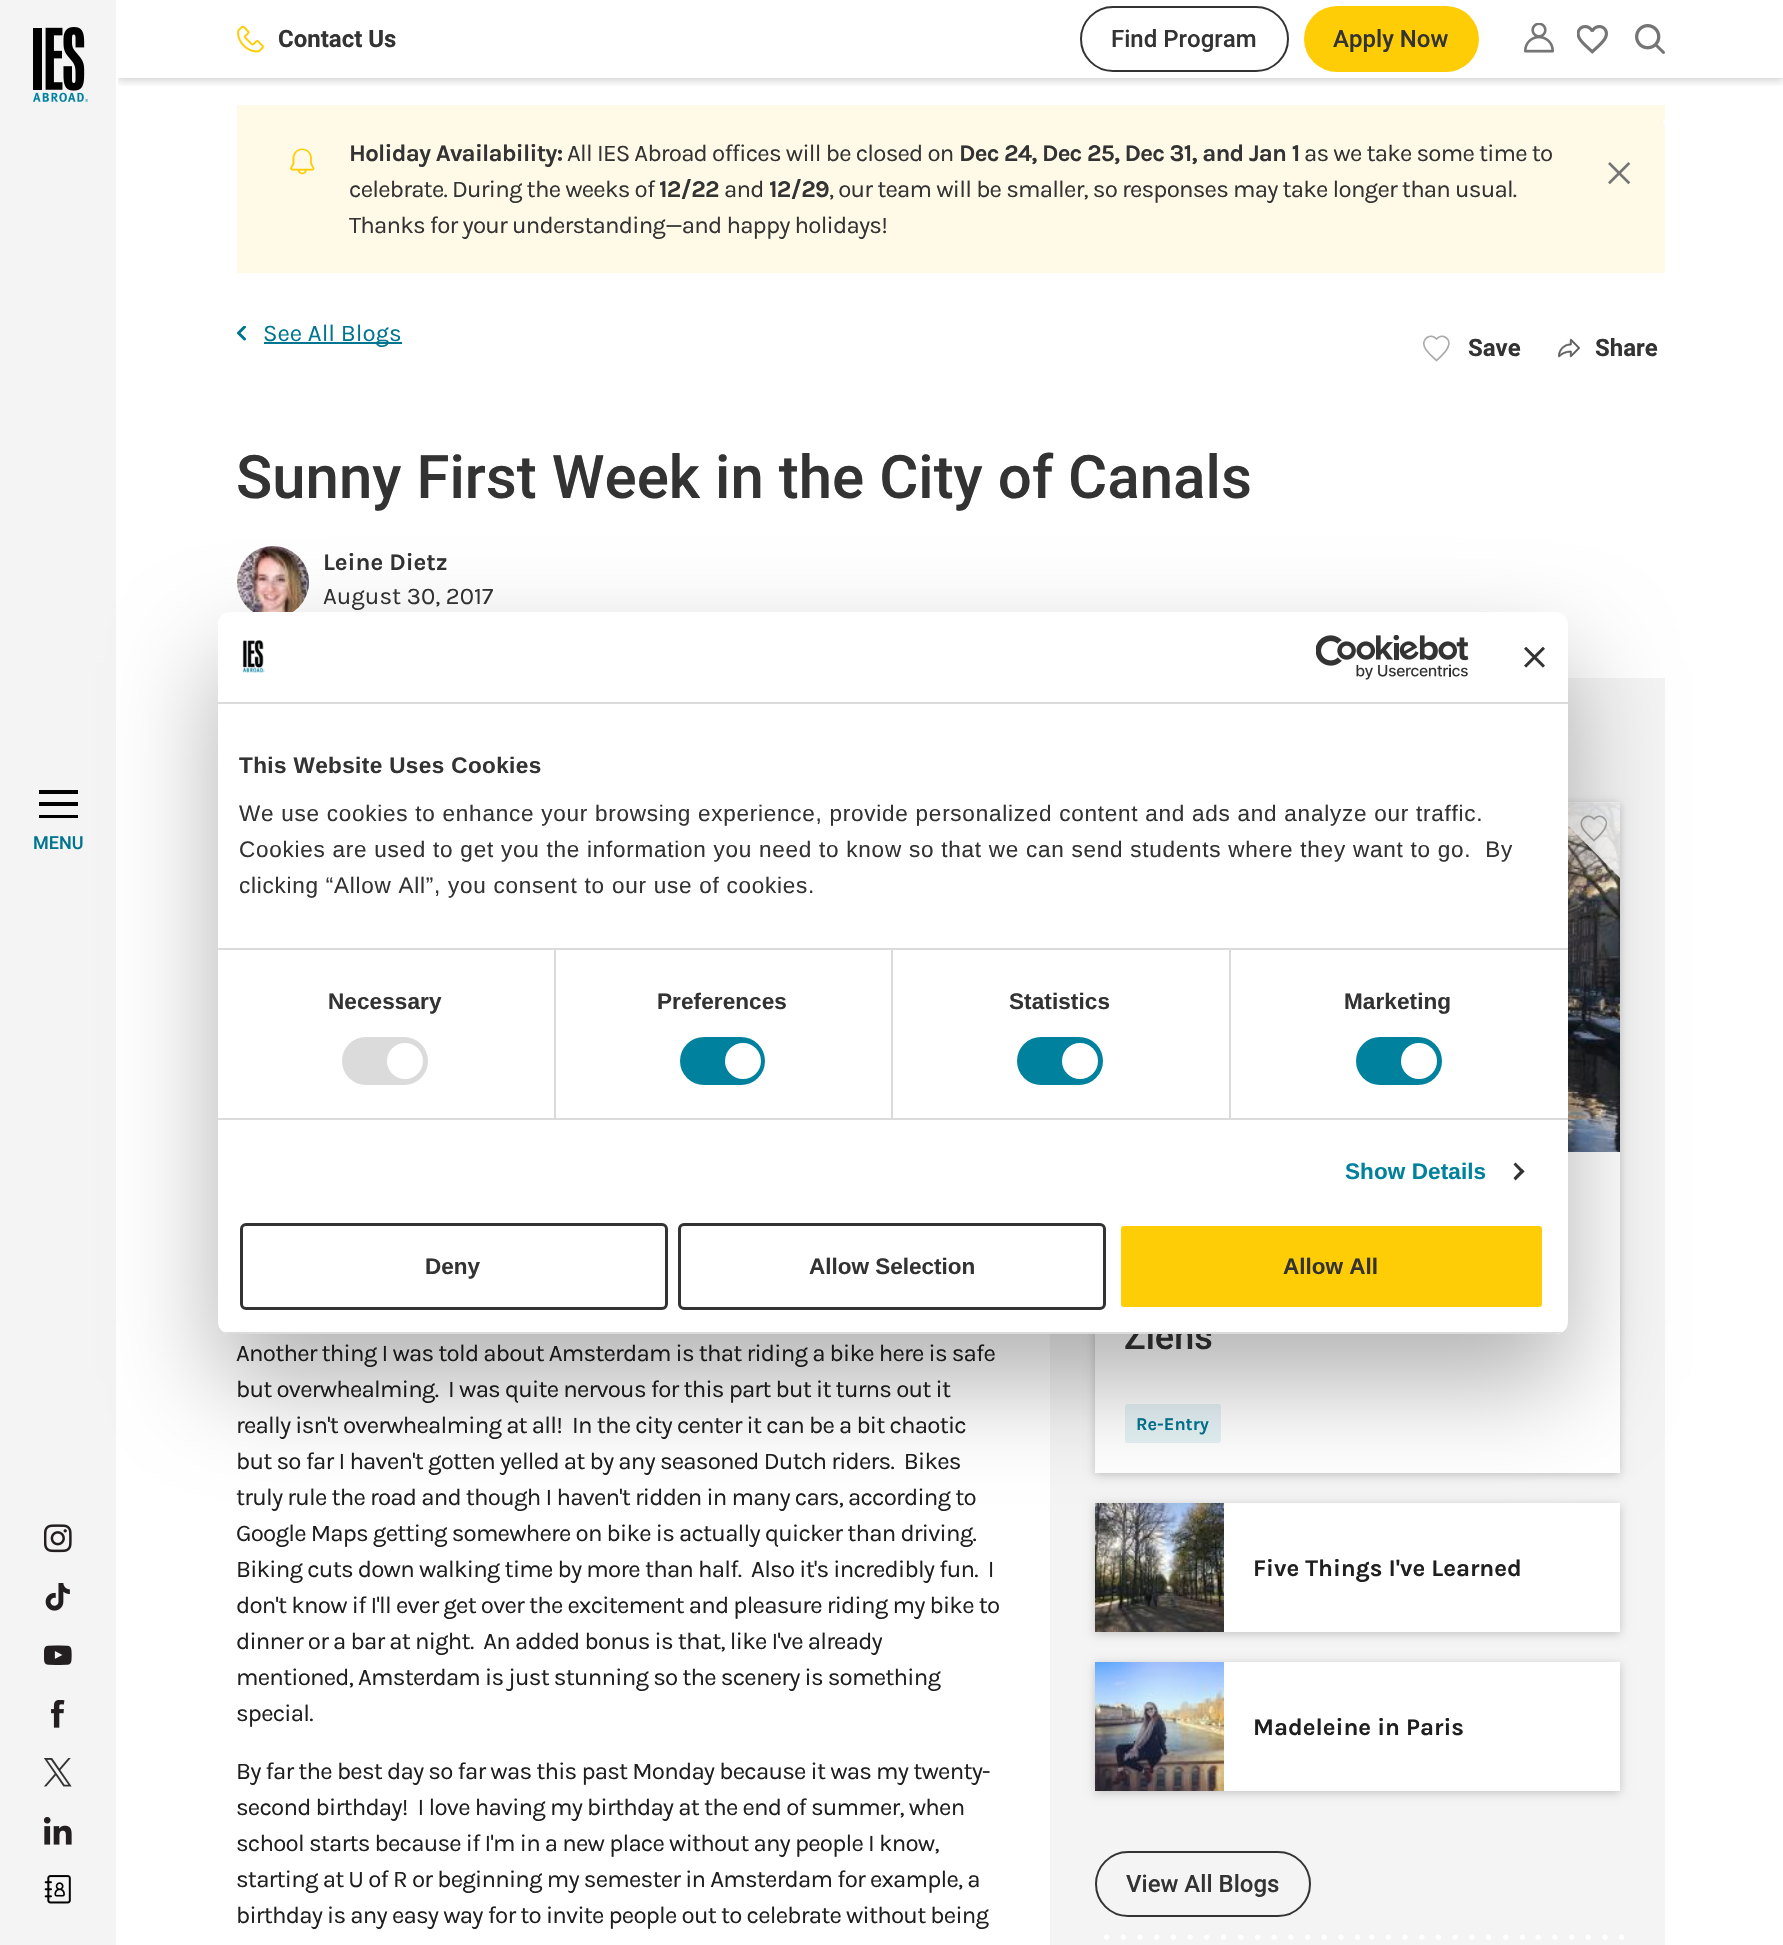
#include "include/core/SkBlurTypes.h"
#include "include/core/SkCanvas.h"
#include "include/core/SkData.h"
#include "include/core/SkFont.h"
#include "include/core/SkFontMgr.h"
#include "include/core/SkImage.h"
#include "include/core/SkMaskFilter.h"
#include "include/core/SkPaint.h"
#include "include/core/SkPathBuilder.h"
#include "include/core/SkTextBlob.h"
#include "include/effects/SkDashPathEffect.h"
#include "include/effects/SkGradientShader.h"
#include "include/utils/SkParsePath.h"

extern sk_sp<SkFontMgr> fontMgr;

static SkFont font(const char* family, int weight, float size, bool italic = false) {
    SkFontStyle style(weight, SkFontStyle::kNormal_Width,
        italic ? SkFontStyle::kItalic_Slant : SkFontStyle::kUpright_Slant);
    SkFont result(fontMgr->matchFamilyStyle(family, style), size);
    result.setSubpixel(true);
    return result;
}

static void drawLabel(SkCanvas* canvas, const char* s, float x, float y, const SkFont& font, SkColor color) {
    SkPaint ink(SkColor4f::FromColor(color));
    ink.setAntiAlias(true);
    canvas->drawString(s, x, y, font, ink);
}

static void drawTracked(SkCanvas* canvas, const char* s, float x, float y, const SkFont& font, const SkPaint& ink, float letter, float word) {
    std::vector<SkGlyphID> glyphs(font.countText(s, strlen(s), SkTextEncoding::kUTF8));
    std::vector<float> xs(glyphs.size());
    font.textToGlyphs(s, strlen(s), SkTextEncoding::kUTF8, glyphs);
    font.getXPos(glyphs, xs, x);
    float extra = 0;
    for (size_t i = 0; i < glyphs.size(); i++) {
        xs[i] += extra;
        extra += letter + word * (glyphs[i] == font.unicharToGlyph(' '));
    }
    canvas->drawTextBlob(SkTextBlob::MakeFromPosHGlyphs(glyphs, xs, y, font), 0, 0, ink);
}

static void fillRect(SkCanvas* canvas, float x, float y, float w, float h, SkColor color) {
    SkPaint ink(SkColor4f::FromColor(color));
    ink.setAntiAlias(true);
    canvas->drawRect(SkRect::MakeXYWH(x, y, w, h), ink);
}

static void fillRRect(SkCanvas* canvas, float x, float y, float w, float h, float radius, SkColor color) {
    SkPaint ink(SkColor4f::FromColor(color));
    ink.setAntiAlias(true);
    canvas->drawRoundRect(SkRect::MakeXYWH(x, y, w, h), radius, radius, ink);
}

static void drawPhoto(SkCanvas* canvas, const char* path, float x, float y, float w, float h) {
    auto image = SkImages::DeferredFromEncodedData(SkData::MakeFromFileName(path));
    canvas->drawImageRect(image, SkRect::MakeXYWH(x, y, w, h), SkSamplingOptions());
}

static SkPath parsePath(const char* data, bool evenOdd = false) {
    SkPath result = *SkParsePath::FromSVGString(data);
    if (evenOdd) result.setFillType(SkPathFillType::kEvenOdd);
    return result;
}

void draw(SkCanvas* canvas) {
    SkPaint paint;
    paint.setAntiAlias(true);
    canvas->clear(0xFFFFFFFF);
    canvas->save();
    canvas->clipRect(SkRect::MakeXYWH(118, 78, 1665, 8));
    paint.setColor(0x33000000);
    paint.setMaskFilter(SkMaskFilter::MakeBlur(kNormal_SkBlurStyle, 4.5f));
    canvas->drawRect(SkRect::MakeXYWH(117, 2, 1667, 78), paint);
    paint.setMaskFilter(nullptr);
    canvas->restore();
    drawPhoto(canvas, "assets/img1.png", 237, 26, 27, 27);
    SkFont font1 = font("Roboto", 700, 24);
    drawLabel(canvas, "Contact Us", 278, 47, font1, 0xFF333333);
    paint.setStroke(true);
    paint.setStrokeWidth(2);
    paint.setColor(0xFF333333);
    canvas->drawRoundRect(SkRect::MakeXYWH(1081, 7, 207, 64), 32, 32, paint);
    SkFont font2 = font("Roboto", 500, 24);
    drawLabel(canvas, "Find Program", 1111, 47, font2, 0xFF333333);
    fillRRect(canvas, 1304, 6, 175, 66, 33, 0xFFFFCD05);
    drawLabel(canvas, "Apply Now", 1333, 47, font2, 0xFF333333);
    drawPhoto(canvas, "assets/img2.png", 1524, 23, 30, 30);
    drawPhoto(canvas, "assets/img3.png", 1577, 25, 31, 29);
    drawPhoto(canvas, "assets/img4.png", 1635, 24, 30, 30);
    fillRect(canvas, 0, 0, 116, 1945, 0xFFF4F4F4);
    fillRect(canvas, 116, 0, 2, 86, 0xFFFFFFFF);
    drawPhoto(canvas, "assets/img5.png", 33, 27, 55, 75);
    fillRect(canvas, 39, 790, 39, 4, 0xFF000000);
    fillRect(canvas, 39, 802, 39, 4, 0xFF000000);
    fillRect(canvas, 39, 815, 39, 3, 0xFF000000);
    SkFont font3 = font("Roboto", 500, 18);
    drawLabel(canvas, "MENU", 33, 849, font3, 0xFF00758F);
    drawPhoto(canvas, "assets/img6.png", 44, 1524, 28, 29);
    drawPhoto(canvas, "assets/img7.png", 45, 1583, 25, 28);
    drawPhoto(canvas, "assets/img8.png", 44, 1645, 28, 20);
    drawPhoto(canvas, "assets/img9.png", 51, 1700, 14, 28);
    drawPhoto(canvas, "assets/img10.png", 44, 1758, 28, 29);
    drawPhoto(canvas, "assets/img11.png", 44, 1817, 28, 28);
    drawPhoto(canvas, "assets/img12.png", 44, 1875, 27, 29);
    fillRect(canvas, 237, 105, 1428, 168, 0xFFFFF9E7);
    drawPhoto(canvas, "assets/img13.png", 290, 148, 25, 27);
    SkFont font4 = font("Karla", 700, 24);
    paint.setStroke(false);
    drawTracked(canvas, "Holiday Availability:", 349, 161, font4, paint, -0.75f, 0);
    SkFont font5 = font("Karla", 400, 24);
    drawTracked(canvas, "All IES Abroad offices will be closed on", 567, 161, font5, paint, -0.75f, 0);
    drawTracked(canvas, "Dec 24, Dec 25, Dec 31, and Jan 1", 959, 161, font4, paint, -0.75f, 0);
    drawTracked(canvas, "as we take some time to", 1304, 161, font5, paint, -0.75f, 0);
    drawTracked(canvas, "celebrate. During the weeks of", 349, 197, font5, paint, -0.75f, 0);
    drawTracked(canvas, "12/22", 659, 197, font4, paint, -0.75f, 0);
    drawTracked(canvas, "and", 724, 197, font5, paint, -0.75f, 0);
    drawTracked(canvas, "12/29", 769, 197, font4, paint, -0.75f, 0);
    drawTracked(canvas, ", our team will be smaller, so responses may take longer than usual.", 829, 197, font5, paint, -0.75f, 0);
    drawTracked(canvas, "Thanks for your understanding—and happy holidays!", 349, 233, font5, paint, -0.75f, 0);
    drawPhoto(canvas, "assets/img14.png", 1608, 162, 23, 23);
    canvas->save();
    canvas->clipRect(SkRect::MakeXYWH(237, 326, 9, 15));
    paint.setStroke(true);
    paint.setStrokeWidth(3);
    paint.setStrokeCap(SkPaint::kRound_Cap);
    paint.setStrokeJoin(SkPaint::kRound_Join);
    paint.setColor(0xFF00758F);
    canvas->drawPath(parsePath("M244.5 339L238.5 333L244.5 327"), paint);
    canvas->restore();
    fillRect(canvas, 264, 342, 138, 2, 0xFF00758F);
    drawLabel(canvas, "See All Blogs", 263, 341, font5, 0xFF00758F);
    paint.setStrokeWidth(1.7f);
    paint.setStrokeCap(SkPaint::kButt_Cap);
    paint.setStrokeJoin(SkPaint::kMiter_Join);
    paint.setColor(0xFFA9A9A9);
    canvas->drawPath(parsePath("M1436.5 360.5C1432.5 356.5 1427 352.5 1424.5 347C1421 339 1431 332.5 1436.5 339C1442 332.5 1452 339 1448 347C1446 352.5 1440.5 356.5 1436.5 360.5Z"), paint);
    drawLabel(canvas, "Save", 1468, 356, font1, 0xFF333333);
    drawPhoto(canvas, "assets/img15.png", 1558, 338, 22, 20);
    drawLabel(canvas, "Share", 1595, 356, font1, 0xFF333333);
    SkFont font6 = font("Roboto", 500, 60);
    drawLabel(canvas, "Sunny First Week in the City of Canals", 236, 498, font6, 0xFF333333);
    drawPhoto(canvas, "assets/img16.png", 1663, 119, 2, 7);
    drawPhoto(canvas, "assets/img17.png", 237, 546, 72, 66);
    drawLabel(canvas, "Leine Dietz", 323, 570, font4, 0xFF333333);
    drawLabel(canvas, "August 30, 2017", 323, 604, font5, 0xFF333333);
    paint.setStroke(false);
    paint.setColor(0xFF1F1F1F);
    drawTracked(canvas, "Another thing I was told about Amsterdam is that riding a bike here is safe", 236, 1361, font5, paint, -0.75f, 0);
    drawTracked(canvas, "but overwhealming.  I was quite nervous for this part but it turns out it", 236, 1397, font5, paint, -0.75f, 0);
    drawTracked(canvas, "really isn't overwhealming at all!  In the city center it can be a bit chaotic", 236, 1433, font5, paint, -0.75f, 0);
    drawTracked(canvas, "but so far I haven't gotten yelled at by any seasoned Dutch riders.  Bikes", 236, 1469, font5, paint, -0.75f, 0);
    drawTracked(canvas, "truly rule the road and though I haven't ridden in many cars, according to", 236, 1505, font5, paint, -0.75f, 0);
    drawTracked(canvas, "Google Maps getting somewhere on bike is actually quicker than driving.", 236, 1541, font5, paint, -0.75f, 0);
    drawTracked(canvas, "Biking cuts down walking time by more than half.  Also it's incredibly fun.  I", 236, 1577, font5, paint, -0.75f, 0);
    drawTracked(canvas, "don't know if I'll ever get over the excitement and pleasure riding my bike to", 236, 1613, font5, paint, -0.75f, 0);
    drawTracked(canvas, "dinner or a bar at night.  An added bonus is that, like I've already", 236, 1649, font5, paint, -0.75f, 0);
    drawTracked(canvas, "mentioned, Amsterdam is just stunning so the scenery is something", 236, 1685, font5, paint, -0.75f, 0);
    drawTracked(canvas, "special.", 236, 1721, font5, paint, -0.75f, 0);
    drawTracked(canvas, "By far the best day so far was this past Monday because it was my twenty-", 236, 1779, font5, paint, -0.75f, 0);
    drawTracked(canvas, "second birthday!  I love having my birthday at the end of summer, when", 236, 1815, font5, paint, -0.75f, 0);
    drawTracked(canvas, "school starts because if I'm in a new place without any people I know,", 236, 1851, font5, paint, -0.75f, 0);
    drawTracked(canvas, "starting at U of R or beginning my semester in Amsterdam for example, a", 236, 1887, font5, paint, -0.75f, 0);
    drawTracked(canvas, "birthday is any easy way for to invite people out to celebrate without being", 236, 1923, font5, paint, -0.75f, 0);
    fillRect(canvas, 1050, 678, 615, 1267, 0xFFF4F4F4);
    paint.setColor(0x33000000);
    paint.setMaskFilter(SkMaskFilter::MakeBlur(kNormal_SkBlurStyle, 4.5f));
    canvas->drawRect(SkRect::MakeXYWH(1095, 804, 525, 671), paint);
    paint.setMaskFilter(nullptr);
    drawPhoto(canvas, "assets/img18.png", 1568, 802, 52, 350);
    paint.setColor(0xDBFFFFFF);
    canvas->drawPath(parsePath("M1545 802H1620V878Z"), paint);
    paint.setStroke(true);
    paint.setColor(0xFFA9A9A9);
    canvas->drawPath(parsePath("M1594 840.5C1590 836.5 1584.5 832.5 1582 827C1578.5 819 1588.5 812.5 1594 819C1599.5 812.5 1609.5 819 1605.5 827C1603.5 832.5 1598 836.5 1594 840.5Z"), paint);
    fillRect(canvas, 1095, 1152, 525, 321, 0xFFFFFFFF);
    SkFont font7 = font("Roboto", 500, 36);
    drawLabel(canvas, "Ziens", 1124, 1349, font7, 0xFF333333);
    fillRRect(canvas, 1125, 1404, 96, 39, 3, 0xFFE5F2F5);
    SkFont font8 = font("Karla", 700, 18);
    drawLabel(canvas, "Re-Entry", 1136, 1430, font8, 0xFF00758F);
    paint.setStroke(false);
    paint.setColor(0x33000000);
    paint.setMaskFilter(SkMaskFilter::MakeBlur(kNormal_SkBlurStyle, 4.5f));
    canvas->drawRect(SkRect::MakeXYWH(1095, 1505, 525, 129), paint);
    paint.setMaskFilter(nullptr);
    fillRect(canvas, 1224, 1503, 396, 129, 0xFFFFFFFF);
    drawPhoto(canvas, "assets/img19.png", 1095, 1503, 129, 129);
    drawLabel(canvas, "Five Things I've Learned", 1253, 1576, font4, 0xFF1F1F1F);
    paint.setMaskFilter(SkMaskFilter::MakeBlur(kNormal_SkBlurStyle, 4.5f));
    canvas->drawRect(SkRect::MakeXYWH(1095, 1664, 525, 129), paint);
    paint.setMaskFilter(nullptr);
    fillRect(canvas, 1224, 1662, 396, 129, 0xFFFFFFFF);
    drawPhoto(canvas, "assets/img20.png", 1095, 1662, 129, 129);
    drawLabel(canvas, "Madeleine in Paris", 1253, 1735, font4, 0xFF1F1F1F);
    paint.setStroke(true);
    paint.setStrokeWidth(2);
    paint.setColor(0xFF333333);
    canvas->drawRoundRect(SkRect::MakeXYWH(1096, 1852, 214, 64), 32, 32, paint);
    drawLabel(canvas, "View All Blogs", 1126, 1892, font2, 0xFF333333);
    drawPhoto(canvas, "assets/img21.png", 1104, 1934, 520, 6);
    paint.setStroke(false);
    paint.setColor(0x4D000000);
    paint.setMaskFilter(SkMaskFilter::MakeBlur(kNormal_SkBlurStyle, 51));
    canvas->drawRoundRect(SkRect::MakeXYWH(218, 660, 1350, 722), 12, 12, paint);
    paint.setMaskFilter(nullptr);
    fillRRect(canvas, 218, 612, 1350, 722, 12, 0xFFFFFFFF);
    fillRect(canvas, 218, 702, 1350, 2, 0xFFDBDBDB);
    drawPhoto(canvas, "assets/img22.png", 242, 640, 23, 33);
    drawPhoto(canvas, "assets/img23.png", 1316, 635, 153, 45);
    drawPhoto(canvas, "assets/img24.png", 1524, 647, 21, 21);
    fillRect(canvas, 218, 948, 1350, 2, 0xFFDBDBDB);
    SkFont font9 = font("Liberation Sans", 700, 22.5f);
    paint.setColor(0xFF333333);
    drawTracked(canvas, "This Website Uses Cookies", 239, 773, font9, paint, 0.4f, 0);
    SkFont font10 = font("Liberation Sans", 400, 22.5f);
    drawTracked(canvas, "We use cookies to enhance your browsing experience, provide personalized content and ads and analyze our traffic.", 239, 821, font10, paint, 0.75f, 0);
    drawTracked(canvas, "Cookies are used to get you the information you need to know so that we can send students where they want to go.  By", 239, 857, font10, paint, 0.75f, 0);
    drawTracked(canvas, "clicking “Allow All”, you consent to our use of cookies.", 239, 893, font10, paint, 0.75f, 0);
    fillRect(canvas, 218, 1118, 1350, 2, 0xFFDBDBDB);
    fillRect(canvas, 554, 950, 2, 168, 0xFFDBDBDB);
    drawTracked(canvas, "Necessary", 328, 1009, font9, paint, 0.1f, 0);
    fillRRect(canvas, 342, 1037, 86, 48, 24, 0xFFDBDBDB);
    paint.setColor(0xFFFFFFFF);
    canvas->drawCircle(405, 1061, 18, paint);
    fillRect(canvas, 891, 950, 2, 168, 0xFFDBDBDB);
    paint.setColor(0xFF333333);
    drawTracked(canvas, "Preferences", 657, 1009, font9, paint, 0.1f, 0);
    fillRRect(canvas, 680, 1037, 85, 48, 24, 0xFF00819E);
    paint.setColor(0xFFFFFFFF);
    canvas->drawCircle(743, 1061, 18, paint);
    fillRect(canvas, 1229, 950, 2, 168, 0xFFDBDBDB);
    paint.setColor(0xFF333333);
    drawTracked(canvas, "Statistics", 1009, 1009, font9, paint, 0.1f, 0);
    fillRRect(canvas, 1017, 1037, 86, 48, 24, 0xFF00819E);
    paint.setColor(0xFFFFFFFF);
    canvas->drawCircle(1080, 1061, 18, paint);
    paint.setColor(0xFF333333);
    drawTracked(canvas, "Marketing", 1344, 1009, font9, paint, 0.1f, 0);
    fillRRect(canvas, 1356, 1037, 86, 48, 24, 0xFF00819E);
    paint.setColor(0xFFFFFFFF);
    canvas->drawCircle(1419, 1061, 18, paint);
    paint.setColor(0xFF00819E);
    drawTracked(canvas, "Show Details", 1345, 1179, font9, paint, 0.1f, 0);
    paint.setColor(0xFF333333);
    canvas->drawPath(parsePath("M1515.5 1162.5L1524.5 1171.5L1522 1173.5L1513.5 1164.5Z"), paint);
    canvas->drawPath(parsePath("M1522 1169L1524.5 1171.5L1515.5 1180.5L1513.5 1178Z"), paint);
    canvas->save();
    canvas->clipPath(parsePath("M230 612H1556C1562.5 612 1568 617.5 1568 624V1322C1568 1328.5 1562.5 1334 1556 1334H230C223.5 1334 218 1328.5 218 1322V624C218 617.5 223.5 612 230 612Z"), true);
    fillRect(canvas, 218, 1332, 1350, 2, 0xFFDBDBDB);
    canvas->restore();
    paint.setStroke(true);
    paint.setStrokeWidth(3);
    canvas->drawRoundRect(SkRect::MakeXYWH(241.5f, 1224.5f, 425, 84), 4.5f, 4.5f, paint);
    drawLabel(canvas, "Deny", 425, 1274, font9, 0xFF333333);
    canvas->drawRoundRect(SkRect::MakeXYWH(679.5f, 1224.5f, 425, 84), 4.5f, 4.5f, paint);
    drawLabel(canvas, "Allow Selection", 809, 1274, font9, 0xFF333333);
    paint.setStroke(false);
    paint.setColor(0xFFFFCD05);
    canvas->drawRoundRect(SkRect::MakeXYWH(1119.5f, 1224.5f, 424, 84), 4.5f, 4.5f, paint);
    paint.setStroke(true);
    paint.setColor(0xFFFFFFFF);
    canvas->drawRoundRect(SkRect::MakeXYWH(1119.5f, 1224.5f, 424, 84), 4.5f, 4.5f, paint);
    drawLabel(canvas, "Allow All", 1283, 1274, font9, 0xFF333333);
}
